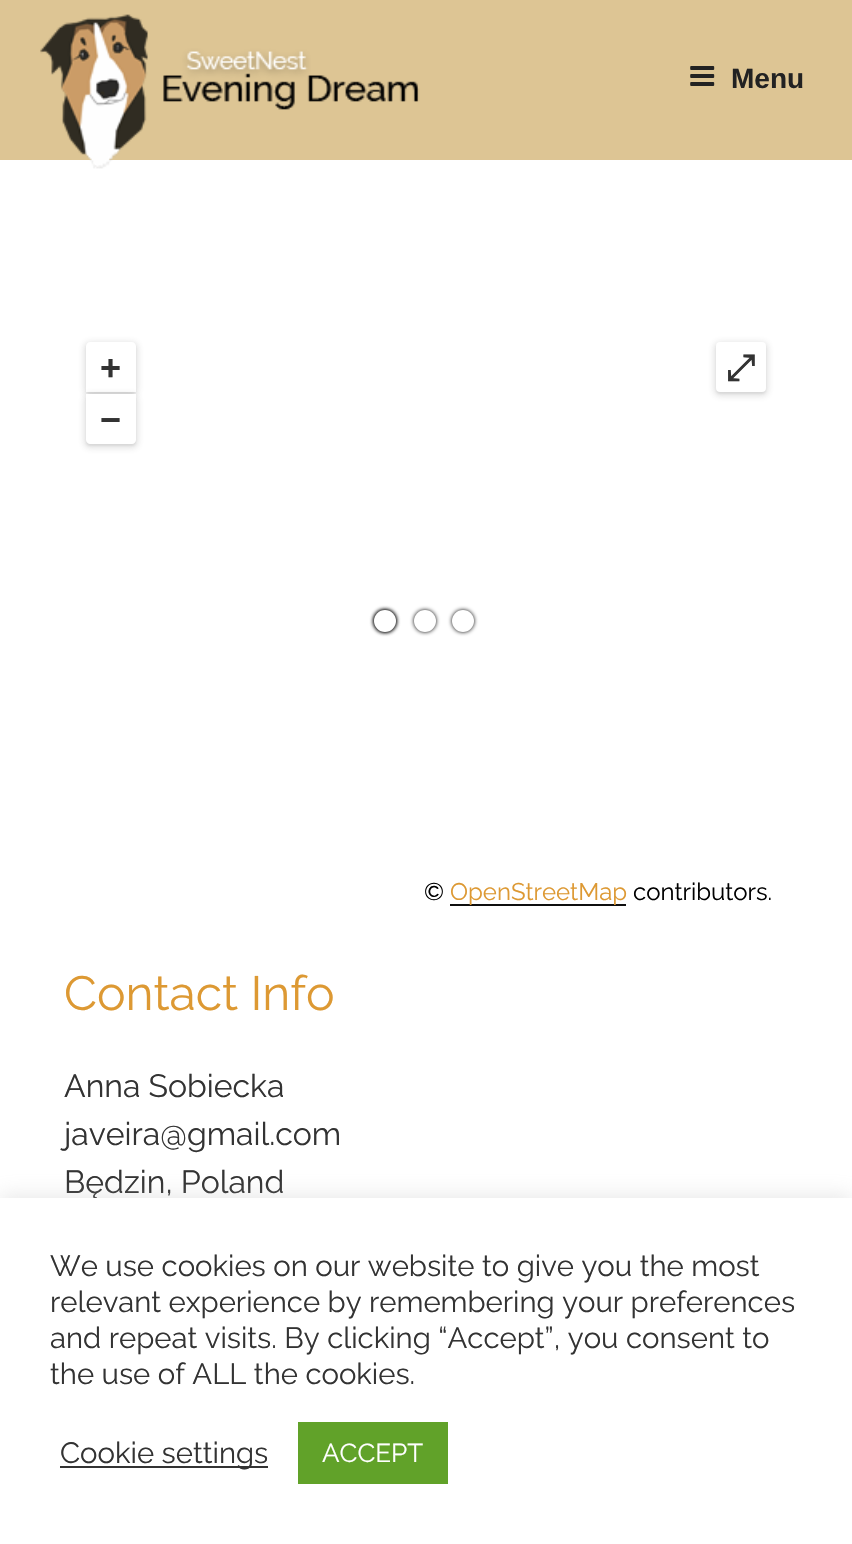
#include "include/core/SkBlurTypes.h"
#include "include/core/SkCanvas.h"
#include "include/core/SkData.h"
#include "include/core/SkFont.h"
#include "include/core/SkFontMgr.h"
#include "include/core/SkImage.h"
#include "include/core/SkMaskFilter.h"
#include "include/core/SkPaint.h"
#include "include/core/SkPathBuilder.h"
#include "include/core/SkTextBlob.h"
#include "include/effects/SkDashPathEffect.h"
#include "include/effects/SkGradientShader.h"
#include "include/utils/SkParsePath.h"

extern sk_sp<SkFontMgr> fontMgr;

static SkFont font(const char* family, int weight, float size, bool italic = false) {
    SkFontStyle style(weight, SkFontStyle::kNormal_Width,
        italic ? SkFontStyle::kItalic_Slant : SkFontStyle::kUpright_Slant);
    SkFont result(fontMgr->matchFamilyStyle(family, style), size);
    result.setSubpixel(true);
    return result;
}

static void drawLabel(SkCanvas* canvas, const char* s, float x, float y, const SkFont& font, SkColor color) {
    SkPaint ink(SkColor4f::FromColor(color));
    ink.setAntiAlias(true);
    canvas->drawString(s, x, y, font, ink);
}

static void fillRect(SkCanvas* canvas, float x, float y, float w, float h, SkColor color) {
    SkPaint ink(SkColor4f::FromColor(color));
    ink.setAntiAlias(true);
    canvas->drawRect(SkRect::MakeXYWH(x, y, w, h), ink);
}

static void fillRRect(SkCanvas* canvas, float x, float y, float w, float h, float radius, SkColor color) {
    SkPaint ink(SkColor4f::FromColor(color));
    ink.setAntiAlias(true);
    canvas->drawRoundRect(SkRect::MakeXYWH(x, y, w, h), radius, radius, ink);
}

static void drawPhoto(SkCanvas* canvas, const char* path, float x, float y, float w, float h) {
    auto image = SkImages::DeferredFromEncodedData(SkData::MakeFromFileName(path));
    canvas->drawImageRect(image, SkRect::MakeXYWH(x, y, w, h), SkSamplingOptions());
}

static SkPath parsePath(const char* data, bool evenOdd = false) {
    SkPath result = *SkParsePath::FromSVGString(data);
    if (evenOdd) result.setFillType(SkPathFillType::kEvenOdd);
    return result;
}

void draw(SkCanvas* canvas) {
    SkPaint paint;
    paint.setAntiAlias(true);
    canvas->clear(0xFFFFFFFF);
    fillRect(canvas, 0, 0, 852, 160, 0xFFDDC594);
    drawPhoto(canvas, "assets/img1.png", 40, 14, 380, 155);
    drawPhoto(canvas, "assets/img2.png", 690, 66, 25, 20);
    SkFont font1 = font("Liberation Sans", 700, 28);
    drawLabel(canvas, "Menu", 731, 88, font1, 0xFF222222);
    paint.setColor(0x29424242);
    paint.setMaskFilter(SkMaskFilter::MakeBlur(kNormal_SkBlurStyle, 3));
    canvas->drawRoundRect(SkRect::MakeXYWH(84, 342, 54, 54), 6, 6, paint);
    paint.setMaskFilter(nullptr);
    paint.setColor(0x14424242);
    paint.setMaskFilter(SkMaskFilter::MakeBlur(kNormal_SkBlurStyle, 1));
    canvas->drawRoundRect(SkRect::MakeXYWH(86, 344, 50, 50), 4, 4, paint);
    paint.setMaskFilter(nullptr);
    paint.setColor(0xFFFFFFFF);
    canvas->drawPath(parsePath("M90 342H132C134 342 136 344 136 346V392H86V346C86 344 88 342 90 342Z"), paint);
    SkFont font2 = font("Liberation Sans", 700, 36);
    drawLabel(canvas, "+", 100, 380, font2, 0xFF333333);
    paint.setColor(0x29424242);
    paint.setMaskFilter(SkMaskFilter::MakeBlur(kNormal_SkBlurStyle, 3));
    canvas->drawRoundRect(SkRect::MakeXYWH(84, 394, 54, 54), 6, 6, paint);
    paint.setMaskFilter(nullptr);
    paint.setColor(0x14424242);
    paint.setMaskFilter(SkMaskFilter::MakeBlur(kNormal_SkBlurStyle, 1));
    canvas->drawRoundRect(SkRect::MakeXYWH(86, 396, 50, 50), 4, 4, paint);
    paint.setMaskFilter(nullptr);
    paint.setColor(0xFFFFFFFF);
    canvas->drawPath(parsePath("M86 394H136V440C136 442 134 444 132 444H90C88 444 86 442 86 440Z"), paint);
    drawLabel(canvas, "−", 100, 432, font2, 0xFF333333);
    paint.setColor(0x29424242);
    paint.setMaskFilter(SkMaskFilter::MakeBlur(kNormal_SkBlurStyle, 3));
    canvas->drawRoundRect(SkRect::MakeXYWH(714, 342, 54, 54), 6, 6, paint);
    paint.setMaskFilter(nullptr);
    paint.setColor(0x14424242);
    paint.setMaskFilter(SkMaskFilter::MakeBlur(kNormal_SkBlurStyle, 1));
    canvas->drawRoundRect(SkRect::MakeXYWH(716, 344, 50, 50), 4, 4, paint);
    paint.setMaskFilter(nullptr);
    fillRRect(canvas, 716, 342, 50, 50, 4, 0xFFFFFFFF);
    SkFont font3 = font("FreeSerif", 700, 36);
    drawLabel(canvas, "⤢", 726, 380, font3, 0xFF333333);
    SkFont font4 = font("Raleway", 400, 24);
    drawLabel(canvas, "©", 424, 900, font4, 0xFF000000);
    fillRect(canvas, 450, 904, 176, 2, 0xFF0F0F0F);
    drawLabel(canvas, "OpenStreetMap", 450, 900, font4, 0xFFDD9933);
    drawLabel(canvas, "contributors.", 633, 900, font4, 0xFF000000);
    paint.setColor(0xFF000000);
    paint.setMaskFilter(SkMaskFilter::MakeBlur(kNormal_SkBlurStyle, 2));
    canvas->drawRoundRect(SkRect::MakeXYWH(374, 610, 22, 22), 11, 11, paint);
    paint.setMaskFilter(nullptr);
    paint.setMaskFilter(SkMaskFilter::MakeBlur(kNormal_SkBlurStyle, 2));
    canvas->drawRoundRect(SkRect::MakeXYWH(374, 610, 22, 22), 11, 11, paint);
    paint.setMaskFilter(nullptr);
    paint.setColor(0xFFFFFFFF);
    canvas->drawCircle(385, 621, 11, paint);
    paint.setColor(0xFF000000);
    paint.setMaskFilter(SkMaskFilter::MakeBlur(kNormal_SkBlurStyle, 2));
    canvas->drawRoundRect(SkRect::MakeXYWH(414, 610, 22, 22), 11, 11, paint);
    paint.setMaskFilter(nullptr);
    paint.setColor(0xFFFFFFFF);
    canvas->drawCircle(425, 621, 11, paint);
    paint.setColor(0xFF000000);
    paint.setMaskFilter(SkMaskFilter::MakeBlur(kNormal_SkBlurStyle, 2));
    canvas->drawRoundRect(SkRect::MakeXYWH(452, 610, 22, 22), 11, 11, paint);
    paint.setMaskFilter(nullptr);
    paint.setColor(0xFFFFFFFF);
    canvas->drawCircle(463, 621, 11, paint);
    SkFont font5 = font("Raleway", 400, 48);
    drawLabel(canvas, "Contact Info", 64, 1010, font5, 0xFFDD9933);
    SkFont font6 = font("Raleway", 400, 32);
    drawLabel(canvas, "Anna Sobiecka", 64, 1097, font6, 0xFF333333);
    drawLabel(canvas, "javeira@gmail.com", 64, 1145, font6, 0xFF333333);
    drawLabel(canvas, "Będzin, Poland", 64, 1193, font6, 0xFF333333);
    paint.setColor(0x4DACABAB);
    paint.setMaskFilter(SkMaskFilter::MakeBlur(kNormal_SkBlurStyle, 10));
    canvas->drawRect(SkRect::MakeXYWH(0, 1196, 852, 346), paint);
    paint.setMaskFilter(nullptr);
    fillRect(canvas, 0, 1198, 852, 346, 0xFFFFFFFF);
    SkFont font7 = font("Raleway", 400, 29.3f);
    drawLabel(canvas, "We use cookies on our website to give you the most", 50, 1276, font7, 0xFF333333);
    drawLabel(canvas, "relevant experience by remembering your preferences", 50, 1312, font7, 0xFF333333);
    drawLabel(canvas, "and repeat visits. By clicking “Accept”, you consent to", 50, 1348, font7, 0xFF333333);
    drawLabel(canvas, "the use of ALL the cookies.", 50, 1384, font7, 0xFF333333);
    fillRect(canvas, 60, 1466, 208, 2, 0xFF333333);
    drawLabel(canvas, "Cookie settings", 60, 1463, font7, 0xFF333333);
    fillRect(canvas, 298, 1422, 150, 62, 0xFF61A229);
    SkFont font8 = font("Raleway", 400, 26);
    drawLabel(canvas, "ACCEPT", 322, 1462, font8, 0xFFFFFFFF);
}
